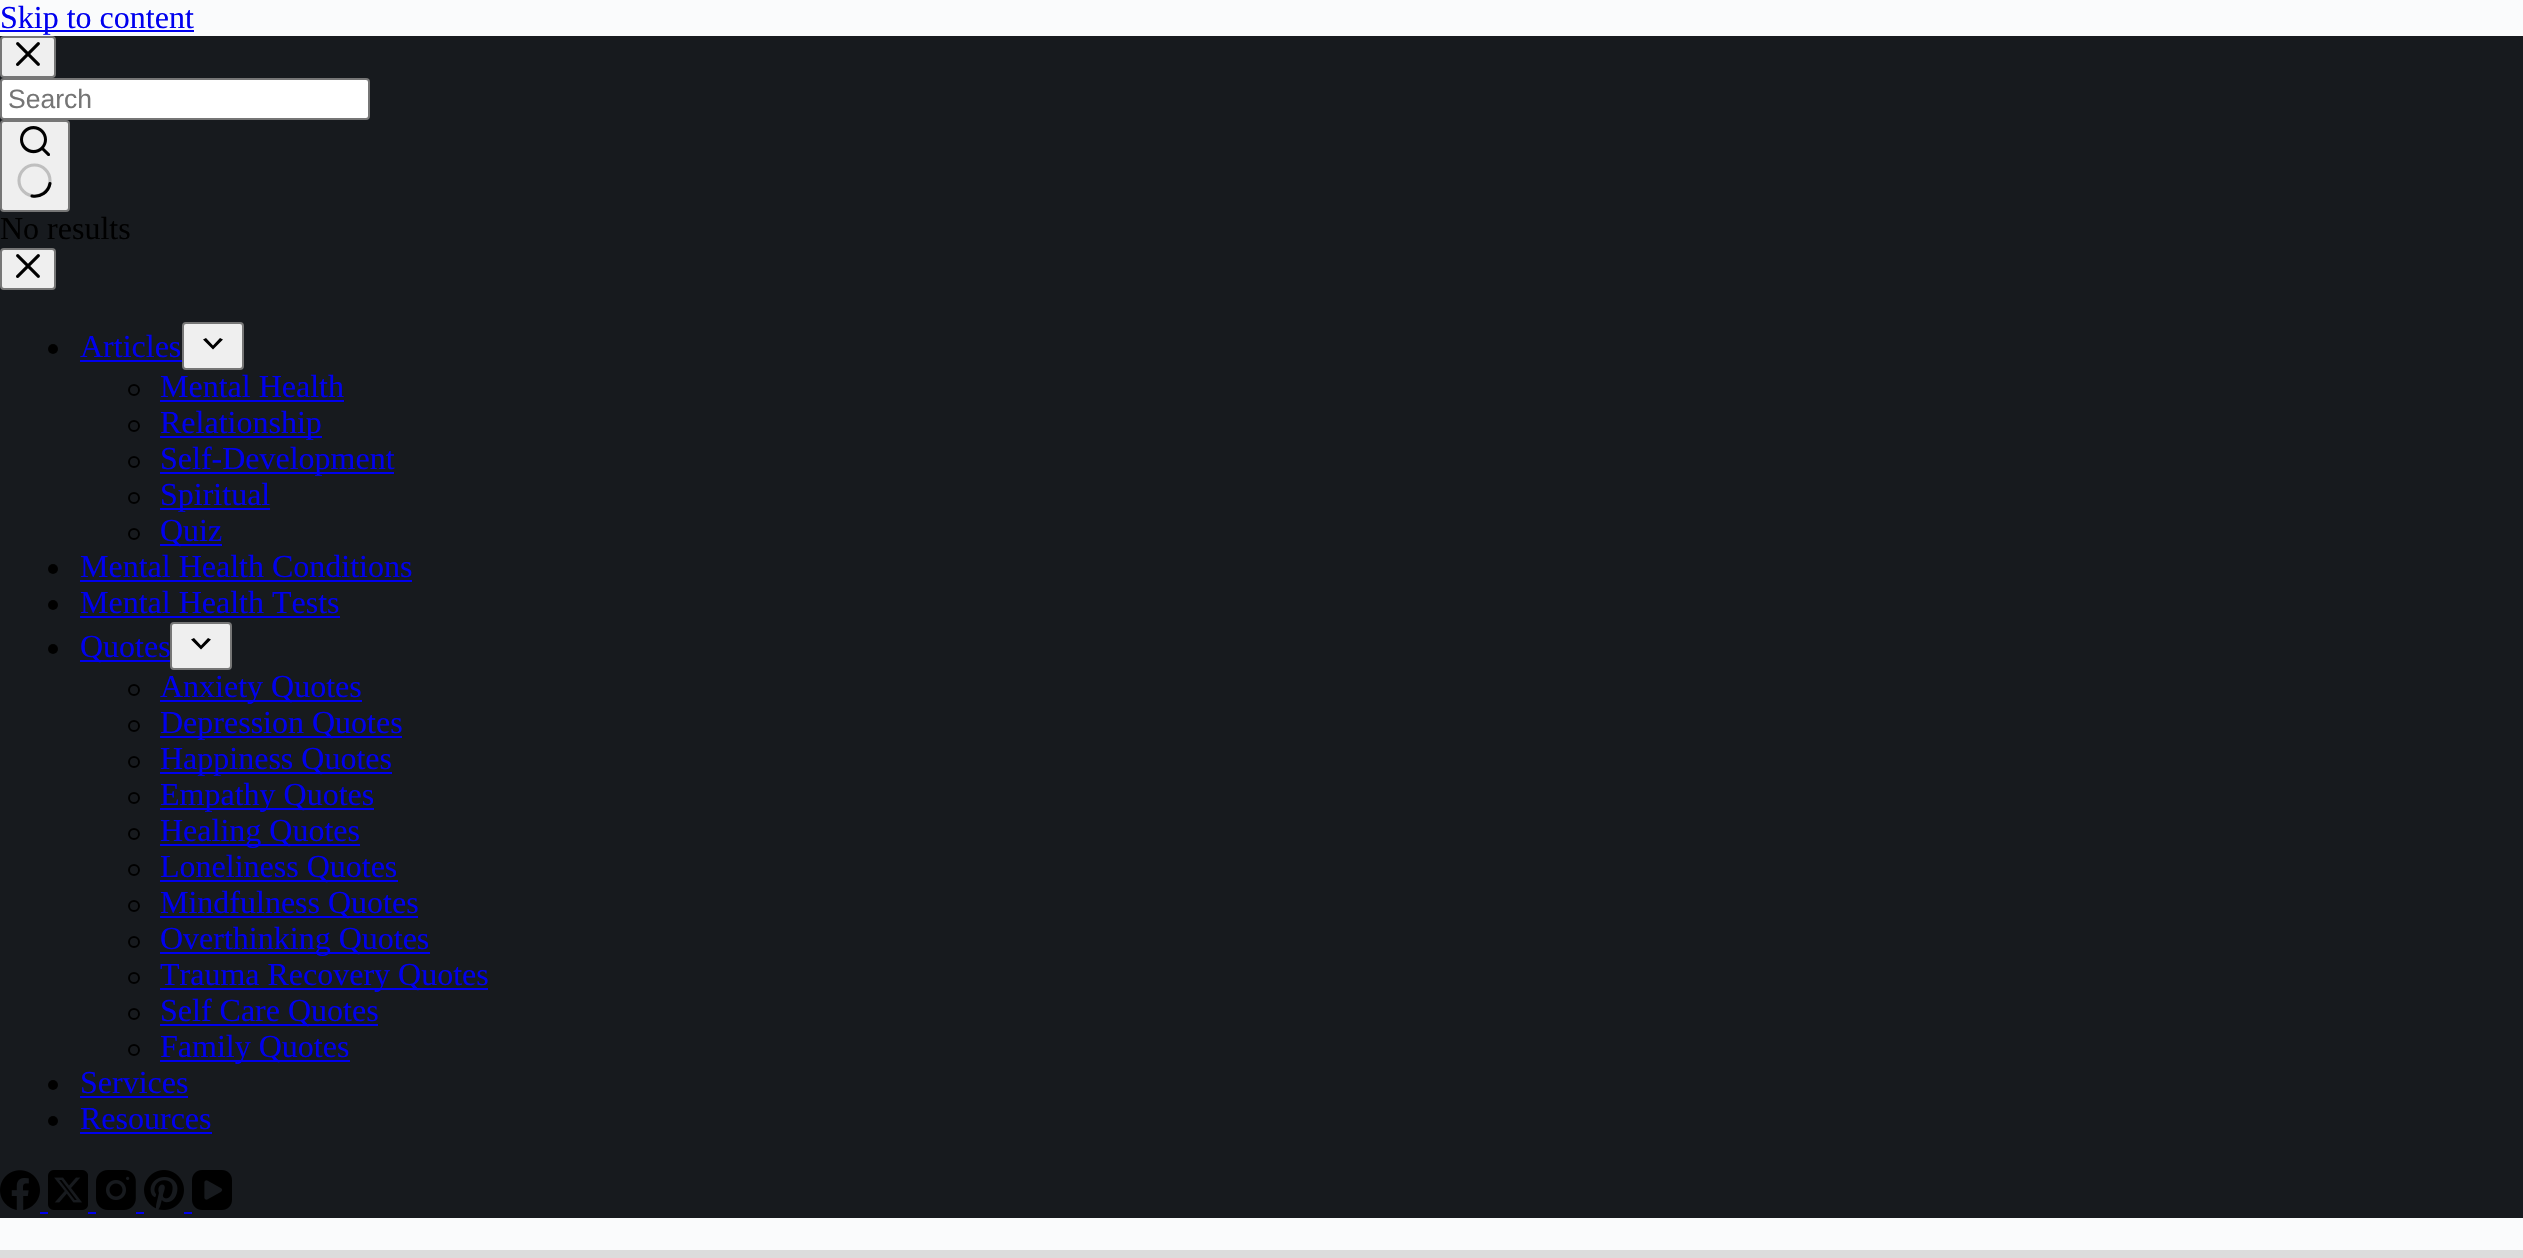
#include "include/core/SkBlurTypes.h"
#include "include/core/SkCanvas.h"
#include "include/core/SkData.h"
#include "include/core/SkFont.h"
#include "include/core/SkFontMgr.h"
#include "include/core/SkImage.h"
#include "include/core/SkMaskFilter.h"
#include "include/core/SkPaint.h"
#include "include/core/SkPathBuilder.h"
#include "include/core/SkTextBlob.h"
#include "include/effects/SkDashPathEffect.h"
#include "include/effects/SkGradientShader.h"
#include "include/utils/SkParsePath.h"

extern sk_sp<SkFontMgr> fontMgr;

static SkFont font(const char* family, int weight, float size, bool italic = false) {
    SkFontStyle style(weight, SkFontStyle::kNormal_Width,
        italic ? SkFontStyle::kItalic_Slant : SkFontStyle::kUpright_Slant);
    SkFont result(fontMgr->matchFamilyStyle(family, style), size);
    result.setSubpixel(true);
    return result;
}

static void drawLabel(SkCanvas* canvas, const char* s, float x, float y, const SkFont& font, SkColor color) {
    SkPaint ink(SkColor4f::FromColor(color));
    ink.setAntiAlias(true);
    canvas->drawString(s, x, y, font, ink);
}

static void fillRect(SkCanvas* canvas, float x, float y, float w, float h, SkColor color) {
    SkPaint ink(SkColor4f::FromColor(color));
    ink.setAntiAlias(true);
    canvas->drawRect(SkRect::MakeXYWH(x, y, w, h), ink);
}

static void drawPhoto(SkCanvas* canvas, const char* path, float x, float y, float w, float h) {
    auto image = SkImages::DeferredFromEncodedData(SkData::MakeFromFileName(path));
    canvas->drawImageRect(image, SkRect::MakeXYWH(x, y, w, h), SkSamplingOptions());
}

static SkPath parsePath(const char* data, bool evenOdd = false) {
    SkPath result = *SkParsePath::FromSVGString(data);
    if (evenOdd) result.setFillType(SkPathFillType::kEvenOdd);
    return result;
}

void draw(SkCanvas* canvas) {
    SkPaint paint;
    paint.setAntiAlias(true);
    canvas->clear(0xFFFAFBFC);
    fillRect(canvas, 0, 30, 194, 2, 0xFF0000EE);
    SkFont font1 = font("Liberation Serif", 400, 32);
    drawLabel(canvas, "Skip to content", 0, 28, font1, 0xFF0000EE);
    fillRect(canvas, 0, 36, 2523, 1182, 0xFF171A1E);
    paint.setColor(0xFFEFEFEF);
    canvas->drawRoundRect(SkRect::MakeXYWH(1, 37, 54, 40), 3, 3, paint);
    paint.setStroke(true);
    paint.setStrokeWidth(2);
    paint.setColor(0xFF767676);
    canvas->drawRoundRect(SkRect::MakeXYWH(1, 37, 54, 40), 3, 3, paint);
    drawPhoto(canvas, "assets/img1.png", 16, 42, 24, 24);
    paint.setStroke(false);
    paint.setColor(0xFFFFFFFF);
    canvas->drawRoundRect(SkRect::MakeXYWH(1, 79, 368, 40), 3, 3, paint);
    paint.setStroke(true);
    paint.setColor(0xFF767676);
    canvas->drawRoundRect(SkRect::MakeXYWH(1, 79, 368, 40), 3, 3, paint);
    SkFont font2 = font("Liberation Sans", 400, 26.5f);
    drawLabel(canvas, "Search", 8, 108, font2, 0xFF757575);
    paint.setStroke(false);
    paint.setColor(0xFFEFEFEF);
    canvas->drawRoundRect(SkRect::MakeXYWH(1, 121, 68, 90), 3, 3, paint);
    paint.setStroke(true);
    paint.setColor(0xFF767676);
    canvas->drawRoundRect(SkRect::MakeXYWH(1, 121, 68, 90), 3, 3, paint);
    drawPhoto(canvas, "assets/img2.png", 20, 126, 30, 30);
    paint.setStrokeWidth(3.1f);
    paint.setColor(0xFFBFBFBF);
    canvas->drawCircle(34.5f, 180.5f, 15.5f, paint);
    paint.setStrokeCap(SkPaint::kRound_Cap);
    paint.setColor(0xFF000000);
    canvas->drawPath(parsePath("M50 183.5C48.5 192 40.5 197.5 32 196"), paint);
    drawLabel(canvas, "No results", 0, 239, font1, 0xFF000000);
    paint.setStroke(false);
    paint.setColor(0xFFEFEFEF);
    canvas->drawRoundRect(SkRect::MakeXYWH(1, 249, 54, 40), 3, 3, paint);
    paint.setStroke(true);
    paint.setStrokeWidth(2);
    paint.setStrokeCap(SkPaint::kButt_Cap);
    paint.setColor(0xFF767676);
    canvas->drawRoundRect(SkRect::MakeXYWH(1, 249, 54, 40), 3, 3, paint);
    drawPhoto(canvas, "assets/img1.png", 16, 254, 24, 24);
    paint.setStroke(false);
    paint.setColor(0xFF000000);
    canvas->drawCircle(53, 349, 5, paint);
    drawLabel(canvas, "Articles", 80, 357, font1, 0xFF0000EE);
    fillRect(canvas, 80, 360, 102, 2, 0xFF0000EE);
    paint.setColor(0xFFEFEFEF);
    canvas->drawRoundRect(SkRect::MakeXYWH(183, 323, 60, 46), 3, 3, paint);
    paint.setStroke(true);
    paint.setColor(0xFF767676);
    canvas->drawRoundRect(SkRect::MakeXYWH(183, 323, 60, 46), 3, 3, paint);
    paint.setStroke(false);
    paint.setColor(0xFF000000);
    canvas->drawPath(parsePath("M206 338L213 345.5L220 338L223 339.5L213 349.5L203 339.5Z"), paint);
    paint.setStroke(true);
    canvas->drawCircle(134, 390, 5, paint);
    drawLabel(canvas, "Mental Health", 160, 397, font1, 0xFF0000EE);
    fillRect(canvas, 160, 400, 184, 2, 0xFF0000EE);
    canvas->drawCircle(134, 426, 5, paint);
    fillRect(canvas, 160, 436, 162, 2, 0xFF0000EE);
    drawLabel(canvas, "Relationship", 160, 433, font1, 0xFF0000EE);
    canvas->drawCircle(134, 462, 5, paint);
    fillRect(canvas, 160, 472, 234, 2, 0xFF0000EE);
    drawLabel(canvas, "Self-Development", 160, 469, font1, 0xFF0000EE);
    canvas->drawCircle(134, 498, 5, paint);
    fillRect(canvas, 160, 508, 110, 2, 0xFF0000EE);
    drawLabel(canvas, "Spiritual", 160, 505, font1, 0xFF0000EE);
    canvas->drawCircle(134, 534, 5, paint);
    fillRect(canvas, 160, 544, 62, 2, 0xFF0000EE);
    drawLabel(canvas, "Quiz", 160, 541, font1, 0xFF0000EE);
    paint.setStroke(false);
    canvas->drawCircle(53, 569, 5, paint);
    drawLabel(canvas, "Mental Health Conditions", 80, 577, font1, 0xFF0000EE);
    fillRect(canvas, 80, 580, 332, 2, 0xFF0000EE);
    canvas->drawCircle(53, 605, 5, paint);
    drawLabel(canvas, "Mental Health Tests", 80, 613, font1, 0xFF0000EE);
    fillRect(canvas, 80, 616, 260, 2, 0xFF0000EE);
    canvas->drawCircle(53, 649, 5, paint);
    fillRect(canvas, 80, 660, 90, 2, 0xFF0000EE);
    drawLabel(canvas, "Quotes", 80, 657, font1, 0xFF0000EE);
    paint.setColor(0xFFEFEFEF);
    canvas->drawRoundRect(SkRect::MakeXYWH(171, 623, 60, 46), 3, 3, paint);
    paint.setStroke(true);
    paint.setColor(0xFF767676);
    canvas->drawRoundRect(SkRect::MakeXYWH(171, 623, 60, 46), 3, 3, paint);
    paint.setStroke(false);
    paint.setColor(0xFF000000);
    canvas->drawPath(parsePath("M194 638L201 645.5L208 638L211 639.5L201 649.5L191 639.5Z"), paint);
    paint.setStroke(true);
    canvas->drawCircle(134, 690, 5, paint);
    fillRect(canvas, 160, 700, 202, 2, 0xFF0000EE);
    drawLabel(canvas, "Anxiety Quotes", 160, 697, font1, 0xFF0000EE);
    canvas->drawCircle(134, 726, 5, paint);
    fillRect(canvas, 160, 736, 242, 2, 0xFF0000EE);
    drawLabel(canvas, "Depression Quotes", 160, 733, font1, 0xFF0000EE);
    canvas->drawCircle(134, 762, 5, paint);
    fillRect(canvas, 160, 772, 232, 2, 0xFF0000EE);
    drawLabel(canvas, "Happiness Quotes", 160, 769, font1, 0xFF0000EE);
    canvas->drawCircle(134, 798, 5, paint);
    fillRect(canvas, 160, 808, 214, 2, 0xFF0000EE);
    drawLabel(canvas, "Empathy Quotes", 160, 805, font1, 0xFF0000EE);
    canvas->drawCircle(134, 834, 5, paint);
    fillRect(canvas, 160, 844, 200, 2, 0xFF0000EE);
    drawLabel(canvas, "Healing Quotes", 160, 841, font1, 0xFF0000EE);
    canvas->drawCircle(134, 870, 5, paint);
    fillRect(canvas, 160, 880, 238, 2, 0xFF0000EE);
    drawLabel(canvas, "Loneliness Quotes", 160, 877, font1, 0xFF0000EE);
    canvas->drawCircle(134, 906, 5, paint);
    fillRect(canvas, 160, 916, 258, 2, 0xFF0000EE);
    drawLabel(canvas, "Mindfulness Quotes", 160, 913, font1, 0xFF0000EE);
    canvas->drawCircle(134, 942, 5, paint);
    fillRect(canvas, 160, 952, 270, 2, 0xFF0000EE);
    drawLabel(canvas, "Overthinking Quotes", 160, 949, font1, 0xFF0000EE);
    canvas->drawCircle(134, 978, 5, paint);
    fillRect(canvas, 160, 988, 328, 2, 0xFF0000EE);
    drawLabel(canvas, "Trauma Recovery Quotes", 160, 985, font1, 0xFF0000EE);
    canvas->drawCircle(134, 1014, 5, paint);
    fillRect(canvas, 160, 1024, 218, 2, 0xFF0000EE);
    drawLabel(canvas, "Self Care Quotes", 160, 1021, font1, 0xFF0000EE);
    canvas->drawCircle(134, 1050, 5, paint);
    fillRect(canvas, 160, 1060, 190, 2, 0xFF0000EE);
    drawLabel(canvas, "Family Quotes", 160, 1057, font1, 0xFF0000EE);
    paint.setStroke(false);
    canvas->drawCircle(53, 1085, 5, paint);
    drawLabel(canvas, "Services", 80, 1093, font1, 0xFF0000EE);
    fillRect(canvas, 80, 1096, 108, 2, 0xFF0000EE);
    canvas->drawCircle(53, 1121, 5, paint);
    drawLabel(canvas, "Resources", 80, 1129, font1, 0xFF0000EE);
    fillRect(canvas, 80, 1132, 132, 2, 0xFF0000EE);
    drawPhoto(canvas, "assets/img3.png", 0, 1170, 40, 40);
    drawPhoto(canvas, "assets/img4.png", 48, 1170, 40, 40);
    drawPhoto(canvas, "assets/img5.png", 96, 1170, 40, 40);
    drawPhoto(canvas, "assets/img6.png", 144, 1170, 40, 40);
    drawPhoto(canvas, "assets/img7.png", 192, 1170, 40, 40);
    fillRect(canvas, 40, 1212, 8, 2, 0xFF0000EE);
    fillRect(canvas, 88, 1212, 8, 2, 0xFF0000EE);
    fillRect(canvas, 136, 1212, 8, 2, 0xFF0000EE);
    fillRect(canvas, 184, 1212, 8, 2, 0xFF0000EE);
    fillRect(canvas, 0, 1250, 2523, 8, 0xFFDCDCDC);
}
